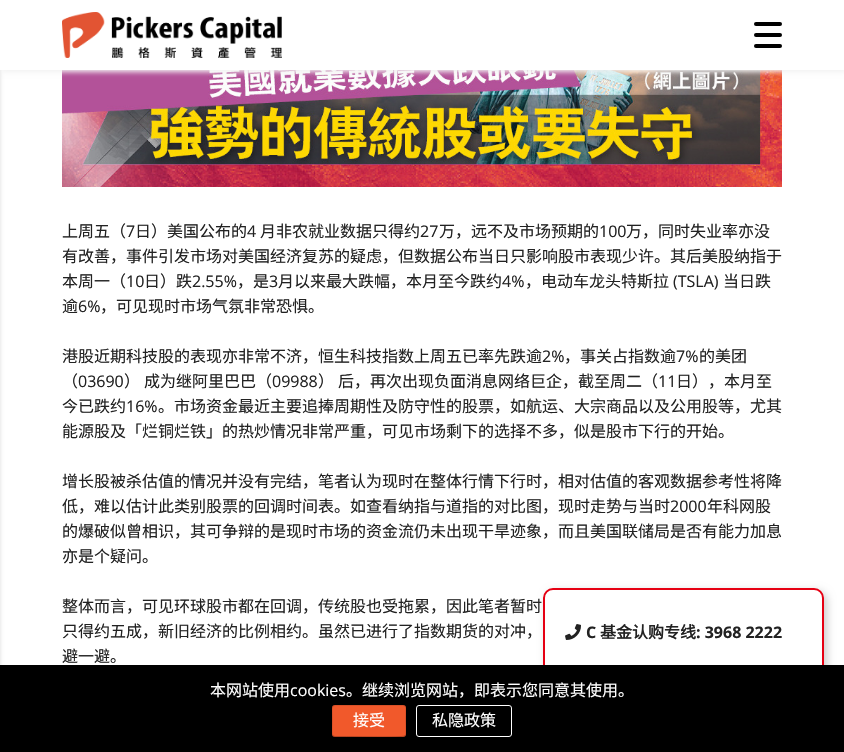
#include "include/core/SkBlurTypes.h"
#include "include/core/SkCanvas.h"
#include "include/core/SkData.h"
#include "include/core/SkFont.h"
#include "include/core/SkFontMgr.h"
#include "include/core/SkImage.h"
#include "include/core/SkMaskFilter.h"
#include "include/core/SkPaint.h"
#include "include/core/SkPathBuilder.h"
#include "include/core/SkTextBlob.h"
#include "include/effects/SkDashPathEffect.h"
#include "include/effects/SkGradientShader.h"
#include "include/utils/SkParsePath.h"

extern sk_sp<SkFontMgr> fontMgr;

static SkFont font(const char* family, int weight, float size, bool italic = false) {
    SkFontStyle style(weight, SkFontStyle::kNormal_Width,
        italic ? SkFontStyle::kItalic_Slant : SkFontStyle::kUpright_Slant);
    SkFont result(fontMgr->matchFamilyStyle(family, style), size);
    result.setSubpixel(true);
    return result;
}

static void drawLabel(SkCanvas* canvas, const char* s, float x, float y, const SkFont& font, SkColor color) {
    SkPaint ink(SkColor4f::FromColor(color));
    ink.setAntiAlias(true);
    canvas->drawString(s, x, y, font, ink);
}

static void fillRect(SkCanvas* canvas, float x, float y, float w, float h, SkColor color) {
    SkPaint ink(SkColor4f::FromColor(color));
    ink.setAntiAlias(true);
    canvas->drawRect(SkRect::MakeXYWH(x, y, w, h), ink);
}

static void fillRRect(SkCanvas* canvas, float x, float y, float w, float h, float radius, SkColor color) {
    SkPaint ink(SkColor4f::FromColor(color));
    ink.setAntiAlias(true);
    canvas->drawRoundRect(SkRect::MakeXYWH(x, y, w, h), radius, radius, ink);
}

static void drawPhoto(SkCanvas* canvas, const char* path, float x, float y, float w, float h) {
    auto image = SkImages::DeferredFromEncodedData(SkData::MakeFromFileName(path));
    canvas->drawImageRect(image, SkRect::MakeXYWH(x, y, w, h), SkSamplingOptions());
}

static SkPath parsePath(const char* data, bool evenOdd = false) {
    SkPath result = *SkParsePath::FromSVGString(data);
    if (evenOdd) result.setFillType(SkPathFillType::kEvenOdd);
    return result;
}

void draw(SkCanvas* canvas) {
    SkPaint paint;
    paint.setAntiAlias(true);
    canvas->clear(0xFFFFFFFF);
    paint.setColor(0x33000000);
    paint.setMaskFilter(SkMaskFilter::MakeBlur(kNormal_SkBlurStyle, 2.5f));
    canvas->drawRect(SkRect::MakeXYWH(-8, 3, 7, 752), paint);
    paint.setMaskFilter(nullptr);
    drawPhoto(canvas, "assets/img2.png", 62, 70, 720, 117);
    paint.setColor(0xFFF2F2F2);
    paint.setMaskFilter(SkMaskFilter::MakeBlur(kNormal_SkBlurStyle, 2.5f));
    canvas->drawRect(SkRect::MakeXYWH(2, 2, 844, 70), paint);
    paint.setMaskFilter(nullptr);
    fillRect(canvas, 0, 0, 844, 70, 0xFFFFFFFF);
    drawPhoto(canvas, "assets/img1.png", 62, 12, 220, 46);
    fillRRect(canvas, 754, 22, 28, 4, 2, 0xFF000000);
    fillRRect(canvas, 754, 33, 28, 4, 2, 0xFF000000);
    fillRRect(canvas, 754, 44, 28, 4, 2, 0xFF000000);
    SkFont font1 = font("Noto Sans CJK SC", 400, 16);
    drawLabel(canvas, "上周五（", 62, 237, font1, 0xFF222222);
    SkFont font2 = font("Open Sans", 400, 16);
    drawLabel(canvas, "7", 126, 237, font2, 0xFF222222);
    drawLabel(canvas, "日）美国公布的", 135, 237, font1, 0xFF222222);
    drawLabel(canvas, "4", 247, 237, font2, 0xFF222222);
    drawLabel(canvas, "月非农就业数据只得约", 260, 237, font1, 0xFF222222);
    drawLabel(canvas, "27", 420, 237, font2, 0xFF222222);
    drawLabel(canvas, "万，远不及市场预期的", 439, 237, font1, 0xFF222222);
    drawLabel(canvas, "100", 599, 237, font2, 0xFF222222);
    drawLabel(canvas, "万，同时失业率亦没", 626, 237, font1, 0xFF222222);
    drawLabel(canvas, "有改善，事件引发市场对美国经济复苏的疑虑，但数据公布当日只影响股市表现少许。其后美股纳指于", 62, 262, font1, 0xFF222222);
    drawLabel(canvas, "本周一（", 62, 287, font1, 0xFF222222);
    drawLabel(canvas, "10", 126, 287, font2, 0xFF222222);
    drawLabel(canvas, "日）跌", 144, 287, font1, 0xFF222222);
    drawLabel(canvas, "2.55%", 192, 287, font2, 0xFF222222);
    drawLabel(canvas, "，是", 237, 287, font1, 0xFF222222);
    drawLabel(canvas, "3", 269, 287, font2, 0xFF222222);
    drawLabel(canvas, "月以来最大跌幅，本月至今跌约", 278, 287, font1, 0xFF222222);
    drawLabel(canvas, "4%", 502, 287, font2, 0xFF222222);
    drawLabel(canvas, "，电动车龙头特斯拉", 525, 287, font1, 0xFF222222);
    drawLabel(canvas, "(TSLA)", 673, 287, font2, 0xFF222222);
    drawLabel(canvas, "当日跌", 723, 287, font1, 0xFF222222);
    drawLabel(canvas, "逾", 62, 312, font1, 0xFF222222);
    drawLabel(canvas, "6%", 78, 312, font2, 0xFF222222);
    drawLabel(canvas, "，可见现时市场气氛非常恐惧。", 100, 312, font1, 0xFF222222);
    drawLabel(canvas, "港股近期科技股的表现亦非常不济，恒生科技指数上周五已率先跌逾", 62, 362, font1, 0xFF222222);
    drawLabel(canvas, "2%", 542, 362, font2, 0xFF222222);
    drawLabel(canvas, "，事关占指数逾", 564, 362, font1, 0xFF222222);
    drawLabel(canvas, "7%", 676, 362, font2, 0xFF222222);
    drawLabel(canvas, "的美团", 699, 362, font1, 0xFF222222);
    drawLabel(canvas, "（", 62, 387, font1, 0xFF222222);
    drawLabel(canvas, "03690", 78, 387, font2, 0xFF222222);
    drawLabel(canvas, "）", 124, 387, font1, 0xFF222222);
    drawLabel(canvas, "成为继阿里巴巴（", 144, 387, font1, 0xFF222222);
    drawLabel(canvas, "09988", 272, 387, font2, 0xFF222222);
    drawLabel(canvas, "）", 318, 387, font1, 0xFF222222);
    drawLabel(canvas, "后，再次出现负面消息网络巨企，截至周二（", 338, 387, font1, 0xFF222222);
    drawLabel(canvas, "11", 658, 387, font2, 0xFF222222);
    drawLabel(canvas, "日），本月至", 676, 387, font1, 0xFF222222);
    drawLabel(canvas, "今已跌约", 62, 412, font1, 0xFF222222);
    drawLabel(canvas, "16%", 126, 412, font2, 0xFF222222);
    drawLabel(canvas, "。市场资金最近主要追捧周期性及防守性的股票，如航运、大宗商品以及公用股等，尤其", 158, 412, font1, 0xFF222222);
    drawLabel(canvas, "能源股及「烂铜烂铁」的热炒情况非常严重，可见市场剩下的选择不多，似是股市下行的开始。", 62, 437, font1, 0xFF222222);
    drawLabel(canvas, "增长股被杀估值的情况并没有完结，笔者认为现时在整体行情下行时，相对估值的客观数据参考性将降", 62, 487, font1, 0xFF222222);
    drawLabel(canvas, "低，难以估计此类别股票的回调时间表。如查看纳指与道指的对比图，现时走势与当时", 62, 512, font1, 0xFF222222);
    drawLabel(canvas, "2000", 670, 512, font2, 0xFF222222);
    drawLabel(canvas, "年科网股", 707, 512, font1, 0xFF222222);
    drawLabel(canvas, "的爆破似曾相识，其可争辩的是现时市场的资金流仍未出现干旱迹象，而且美国联储局是否有能力加息", 62, 537, font1, 0xFF222222);
    drawLabel(canvas, "亦是个疑问。", 62, 562, font1, 0xFF222222);
    drawLabel(canvas, "整体而言，可见环球股市都在回调，传统股也受拖累，因此笔者暂时", 62, 612, font1, 0xFF222222);
    drawLabel(canvas, "只得约五成，新旧经济的比例相约。虽然已进行了指数期货的对冲，", 62, 637, font1, 0xFF222222);
    drawLabel(canvas, "避一避。", 62, 662, font1, 0xFF222222);
    paint.setColor(0xFFCCCCCC);
    paint.setMaskFilter(SkMaskFilter::MakeBlur(kNormal_SkBlurStyle, 4));
    canvas->drawRoundRect(SkRect::MakeXYWH(546, 591, 281, 144), 10, 10, paint);
    paint.setMaskFilter(nullptr);
    paint.setColor(0xFFFFFFFF);
    canvas->drawRoundRect(SkRect::MakeXYWH(544, 589, 279, 142), 9, 9, paint);
    paint.setStroke(true);
    paint.setStrokeWidth(2);
    paint.setColor(0xFFE60013);
    canvas->drawRoundRect(SkRect::MakeXYWH(544, 589, 279, 142), 9, 9, paint);
    drawPhoto(canvas, "assets/img3.png", 565, 624, 16, 16);
    SkFont font3 = font("Open Sans", 700, 16);
    drawLabel(canvas, "C", 586, 638, font3, 0xFF222222);
    SkFont font4 = font("Noto Sans CJK SC", 700, 16);
    drawLabel(canvas, "基金认购专线", 600, 638, font4, 0xFF222222);
    drawLabel(canvas, ": 3968 2222", 696, 638, font3, 0xFF222222);
    fillRect(canvas, 0, 665, 844, 87, 0xFF000000);
    drawLabel(canvas, "本网站使用", 210, 696, font1, 0xFFFFFFFF);
    drawLabel(canvas, "cookies", 290, 696, font2, 0xFFFFFFFF);
    drawLabel(canvas, "。继续浏览网站，即表示您同意其使用。", 346, 696, font1, 0xFFFFFFFF);
    fillRRect(canvas, 332, 705, 74, 32, 3, 0xFFF1592B);
    paint.setStrokeWidth(1);
    paint.setColor(0x40000000);
    canvas->drawPath(parsePath("M405 736H404.5C402.5 737.5 353 736.5 346.5 736.5H335L333 736"), paint);
    paint.setColor(0x1A000000);
    canvas->drawPath(parsePath("M333 736C331.5 734 332.5 723.5 332.5 721C332.5 703 329 705.5 346.5 705.5H391.5C409 705.5 405.5 703 405.5 721C405.5 723.5 406.5 734 405 736"), paint);
    drawLabel(canvas, "接受", 353, 726, font1, 0xFFFFFFFF);
    paint.setColor(0xFFFFFFFF);
    canvas->drawRoundRect(SkRect::MakeXYWH(416.5f, 705.5f, 95, 31), 2.5f, 2.5f, paint);
    drawLabel(canvas, "私隐政策", 432, 726, font1, 0xFFFFFFFF);
}
